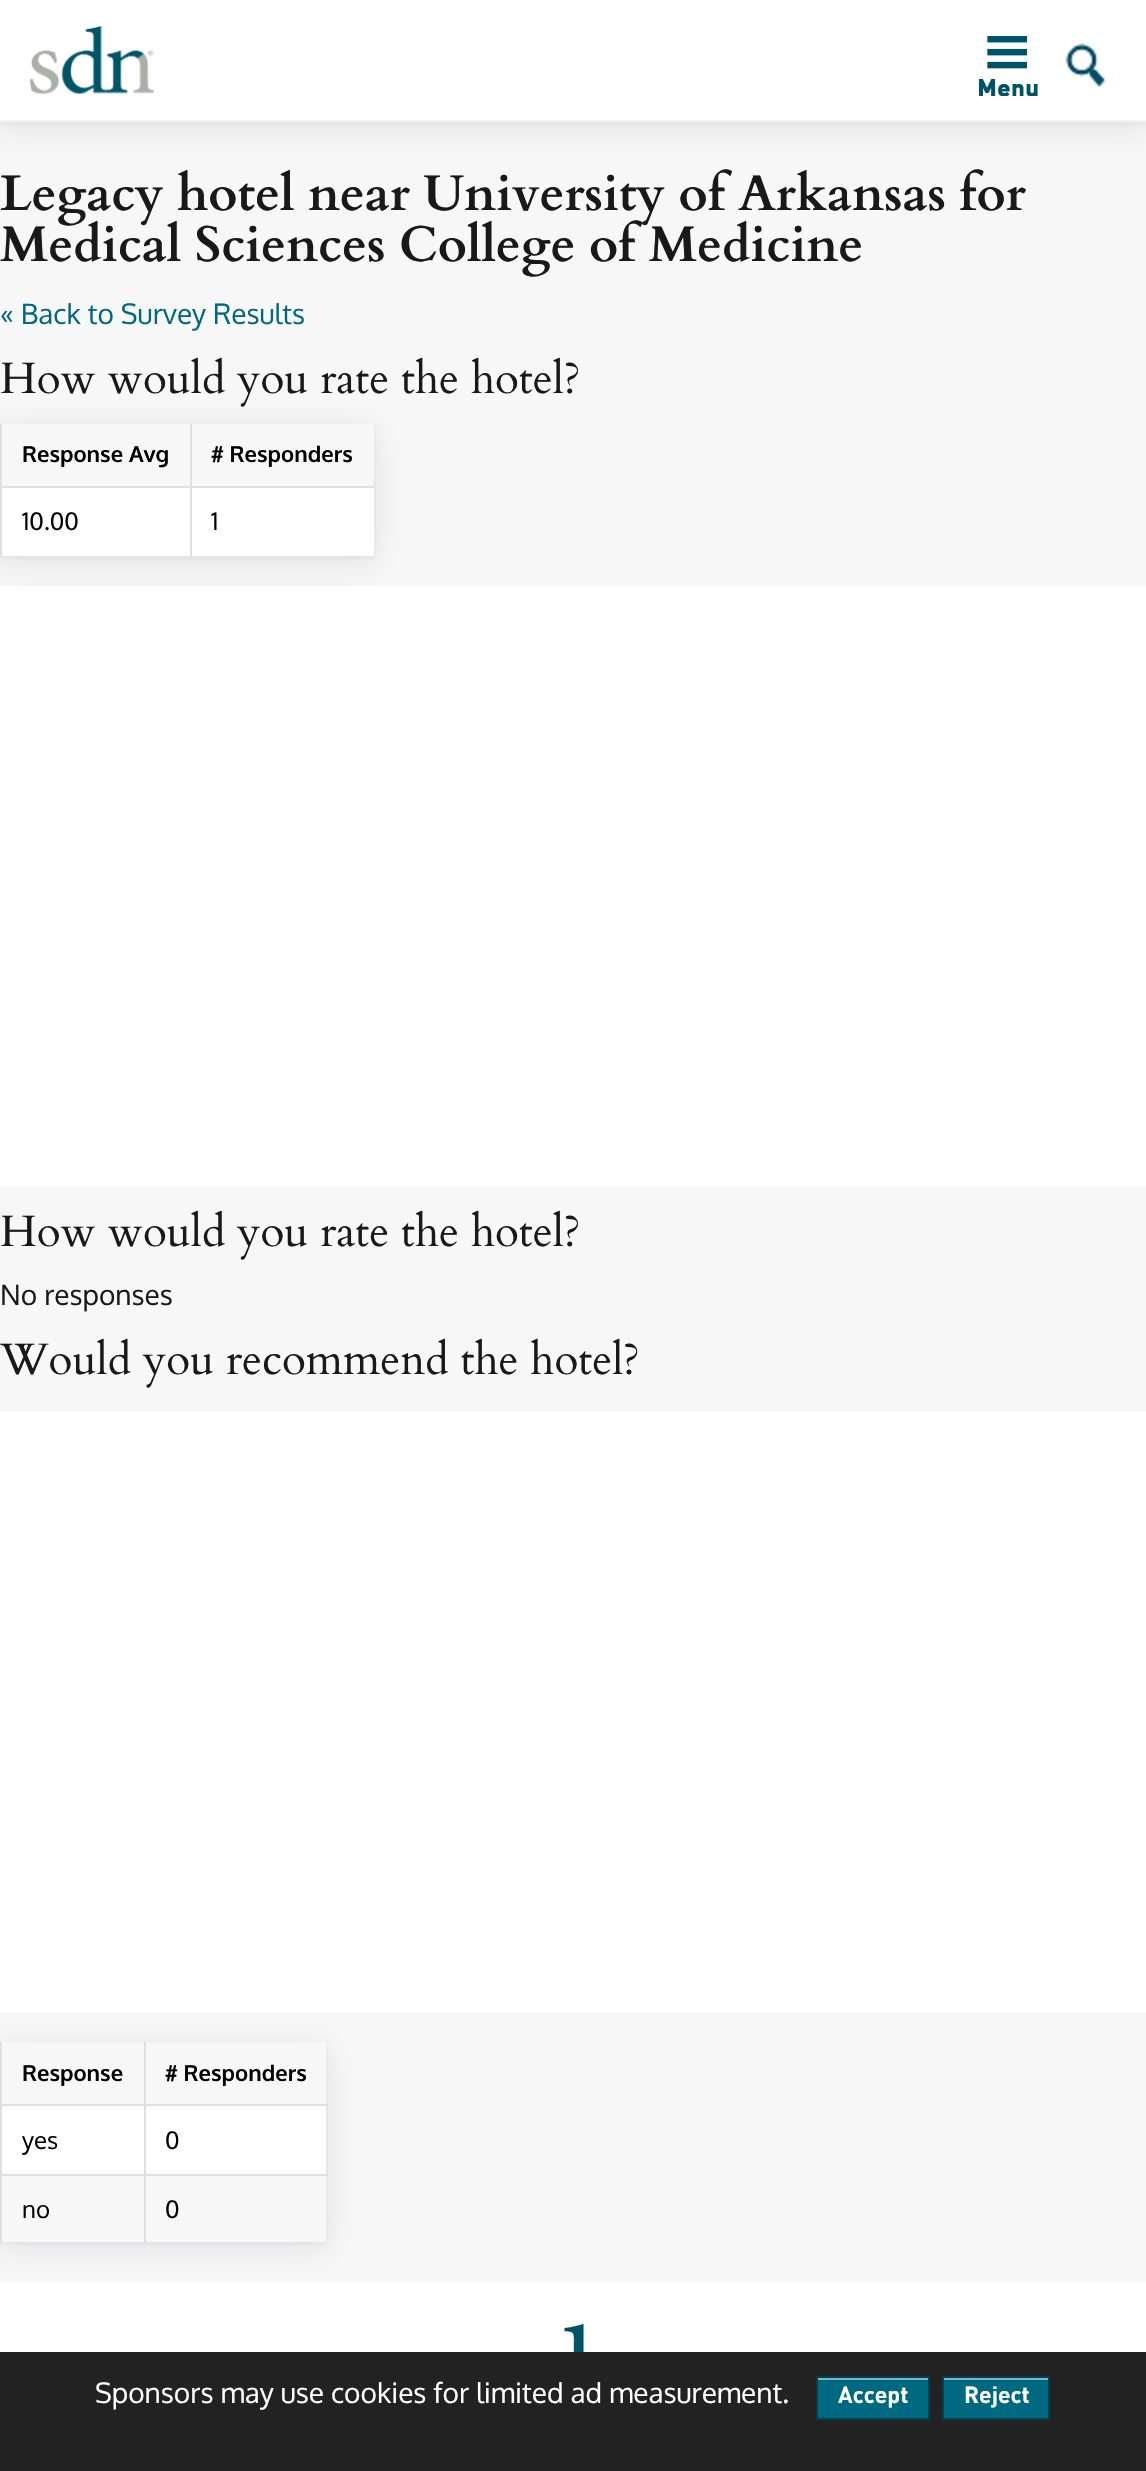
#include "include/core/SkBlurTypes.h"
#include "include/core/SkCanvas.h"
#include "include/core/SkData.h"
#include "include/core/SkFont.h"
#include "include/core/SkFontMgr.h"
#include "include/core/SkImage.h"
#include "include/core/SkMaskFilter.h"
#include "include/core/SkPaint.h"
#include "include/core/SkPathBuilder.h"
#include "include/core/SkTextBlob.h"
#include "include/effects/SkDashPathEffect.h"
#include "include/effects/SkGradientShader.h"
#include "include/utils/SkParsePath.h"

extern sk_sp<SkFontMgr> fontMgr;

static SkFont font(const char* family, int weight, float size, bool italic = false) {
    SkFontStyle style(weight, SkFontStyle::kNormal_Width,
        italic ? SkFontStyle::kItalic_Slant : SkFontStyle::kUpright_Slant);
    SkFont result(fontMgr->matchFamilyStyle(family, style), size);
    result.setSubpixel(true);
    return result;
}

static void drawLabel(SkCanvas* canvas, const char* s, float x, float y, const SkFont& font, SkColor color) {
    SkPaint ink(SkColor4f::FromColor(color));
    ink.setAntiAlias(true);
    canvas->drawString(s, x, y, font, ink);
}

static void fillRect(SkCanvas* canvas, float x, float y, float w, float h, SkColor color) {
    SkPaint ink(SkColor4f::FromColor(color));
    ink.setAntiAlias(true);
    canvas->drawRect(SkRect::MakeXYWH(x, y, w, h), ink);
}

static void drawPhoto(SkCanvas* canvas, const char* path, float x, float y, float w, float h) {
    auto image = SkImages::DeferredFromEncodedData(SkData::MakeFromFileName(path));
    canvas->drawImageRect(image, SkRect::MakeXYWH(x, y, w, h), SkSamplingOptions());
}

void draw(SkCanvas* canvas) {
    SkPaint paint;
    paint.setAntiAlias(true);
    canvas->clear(0xFFF7F7F7);
    paint.setColor(0x1A2D2342);
    paint.setMaskFilter(SkMaskFilter::MakeBlur(kNormal_SkBlurStyle, 16));
    canvas->drawRect(SkRect::MakeXYWH(0, 6, 1146, 122), paint);
    paint.setMaskFilter(nullptr);
    paint.setColor(0x0D000000);
    paint.setMaskFilter(SkMaskFilter::MakeBlur(kNormal_SkBlurStyle, 2));
    canvas->drawRect(SkRect::MakeXYWH(0, 2, 1146, 122), paint);
    paint.setMaskFilter(nullptr);
    fillRect(canvas, 0, 0, 1146, 120, 0xFFFFFFFF);
    fillRect(canvas, 0, 120, 1146, 2, 0xFFF4F4F4);
    drawPhoto(canvas, "assets/img1.png", 30, 26, 124, 68);
    drawPhoto(canvas, "assets/img2.png", 979, 36, 59, 60);
    drawPhoto(canvas, "assets/img3.png", 1065, 43, 42, 44);
    SkFont font1 = font("Cardo", 700, 50);
    drawLabel(canvas, "Legacy hotel near University of Arkansas for", 0, 210, font1, 0xFF191919);
    drawLabel(canvas, "Medical Sciences College of Medicine", 0, 261, font1, 0xFF191919);
    SkFont font2 = font("Oxygen", 400, 28);
    drawLabel(canvas, "« Back to Survey Results", 0, 324, font2, 0xFF006982);
    paint.setColor(0x1A2D2342);
    paint.setMaskFilter(SkMaskFilter::MakeBlur(kNormal_SkBlurStyle, 16));
    canvas->drawRect(SkRect::MakeXYWH(0, 430, 374, 132), paint);
    paint.setMaskFilter(nullptr);
    SkFont font3 = font("Cardo", 400, 44);
    drawLabel(canvas, "How would you rate the hotel?", 0, 393, font3, 0xFF191919);
    paint.setColor(0x0D000000);
    paint.setMaskFilter(SkMaskFilter::MakeBlur(kNormal_SkBlurStyle, 2));
    canvas->drawRect(SkRect::MakeXYWH(0, 426, 374, 132), paint);
    paint.setMaskFilter(nullptr);
    fillRect(canvas, 2, 488, 372, 68, 0xFFFFFFFF);
    fillRect(canvas, 2, 424, 372, 62, 0xFFF7F7F7);
    fillRect(canvas, 190, 486, 2, 70, 0xFFE0E0E0);
    fillRect(canvas, 190, 486, 184, 2, 0xFFE0E0E0);
    fillRect(canvas, 190, 424, 2, 64, 0xFFE0E0E0);
    fillRect(canvas, 0, 486, 2, 70, 0xFFE0E0E0);
    fillRect(canvas, 0, 486, 192, 2, 0xFFE0E0E0);
    fillRect(canvas, 0, 424, 2, 64, 0xFFE0E0E0);
    SkFont font4 = font("Oxygen", 700, 22);
    drawLabel(canvas, "Response Avg", 22, 462, font4, 0xFF000000);
    drawLabel(canvas, "# Responders", 211, 462, font4, 0xFF000000);
    SkFont font5 = font("Oxygen", 400, 24);
    drawLabel(canvas, "10.00", 22, 530, font5, 0xFF000000);
    drawLabel(canvas, "1", 211, 530, font5, 0xFF000000);
    fillRect(canvas, 0, 586, 1146, 600, 0xFFFFFFFF);
    drawLabel(canvas, "How would you rate the hotel?", 0, 1246, font3, 0xFF191919);
    drawLabel(canvas, "No responses", 0, 1305, font2, 0xFF191919);
    drawLabel(canvas, "Would you recommend the hotel?", 0, 1374, font3, 0xFF191919);
    fillRect(canvas, 0, 1412, 1146, 600, 0xFFFFFFFF);
    paint.setColor(0x1A2D2342);
    paint.setMaskFilter(SkMaskFilter::MakeBlur(kNormal_SkBlurStyle, 16));
    canvas->drawRect(SkRect::MakeXYWH(0, 2048, 326, 200), paint);
    paint.setMaskFilter(nullptr);
    paint.setColor(0x0D000000);
    paint.setMaskFilter(SkMaskFilter::MakeBlur(kNormal_SkBlurStyle, 2));
    canvas->drawRect(SkRect::MakeXYWH(0, 2044, 326, 200), paint);
    paint.setMaskFilter(nullptr);
    fillRect(canvas, 2, 2106, 324, 68, 0xFFFFFFFF);
    fillRect(canvas, 2, 2042, 324, 62, 0xFFF7F7F7);
    fillRect(canvas, 2, 2176, 324, 66, 0xFFF7F7F7);
    fillRect(canvas, 144, 2174, 2, 70, 0xFFE0E0E0);
    fillRect(canvas, 144, 2174, 184, 2, 0xFFE0E0E0);
    fillRect(canvas, 144, 2104, 2, 72, 0xFFE0E0E0);
    fillRect(canvas, 144, 2104, 184, 2, 0xFFE0E0E0);
    fillRect(canvas, 144, 2042, 2, 64, 0xFFE0E0E0);
    fillRect(canvas, 0, 2174, 2, 70, 0xFFE0E0E0);
    fillRect(canvas, 0, 2174, 146, 2, 0xFFE0E0E0);
    fillRect(canvas, 0, 2104, 2, 72, 0xFFE0E0E0);
    fillRect(canvas, 0, 2104, 146, 2, 0xFFE0E0E0);
    fillRect(canvas, 0, 2042, 2, 64, 0xFFE0E0E0);
    drawLabel(canvas, "Response", 22, 2081, font4, 0xFF000000);
    drawLabel(canvas, "# Responders", 165, 2081, font4, 0xFF000000);
    drawLabel(canvas, "yes", 22, 2149, font5, 0xFF000000);
    drawLabel(canvas, "0", 165, 2149, font5, 0xFF000000);
    drawLabel(canvas, "no", 22, 2218, font5, 0xFF000000);
    drawLabel(canvas, "0", 165, 2218, font5, 0xFF000000);
    fillRect(canvas, 0, 2282, 1146, 70, 0xFFFFFFFF);
    drawPhoto(canvas, "assets/img4.png", 564, 2324, 20, 28);
    fillRect(canvas, 0, 2352, 1146, 119, 0xFF222222);
    drawLabel(canvas, "Sponsors may use cookies for limited ad measurement.", 95, 2403, font2, 0xFFFFFFFF);
    fillRect(canvas, 818, 2380, 110, 38, 0xFF006982);
    fillRect(canvas, 818, 2378, 110, 2, 0xFF80B4C1);
    paint.setStroke(true);
    paint.setStrokeWidth(2);
    paint.setColor(0xFF003F4E);
    canvas->drawRect(SkRect::MakeXYWH(817, 2377, 112, 42), paint);
    SkFont font6 = font("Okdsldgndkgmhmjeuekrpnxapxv", 700, 23);
    drawLabel(canvas, "Accept", 838, 2403, font6, 0xFFFFFFFF);
    fillRect(canvas, 944, 2380, 104, 38, 0xFF006982);
    fillRect(canvas, 944, 2378, 104, 2, 0xFF80B4C1);
    canvas->drawRect(SkRect::MakeXYWH(943, 2377, 106, 42), paint);
    drawLabel(canvas, "Reject", 964, 2403, font6, 0xFFFFFFFF);
}
